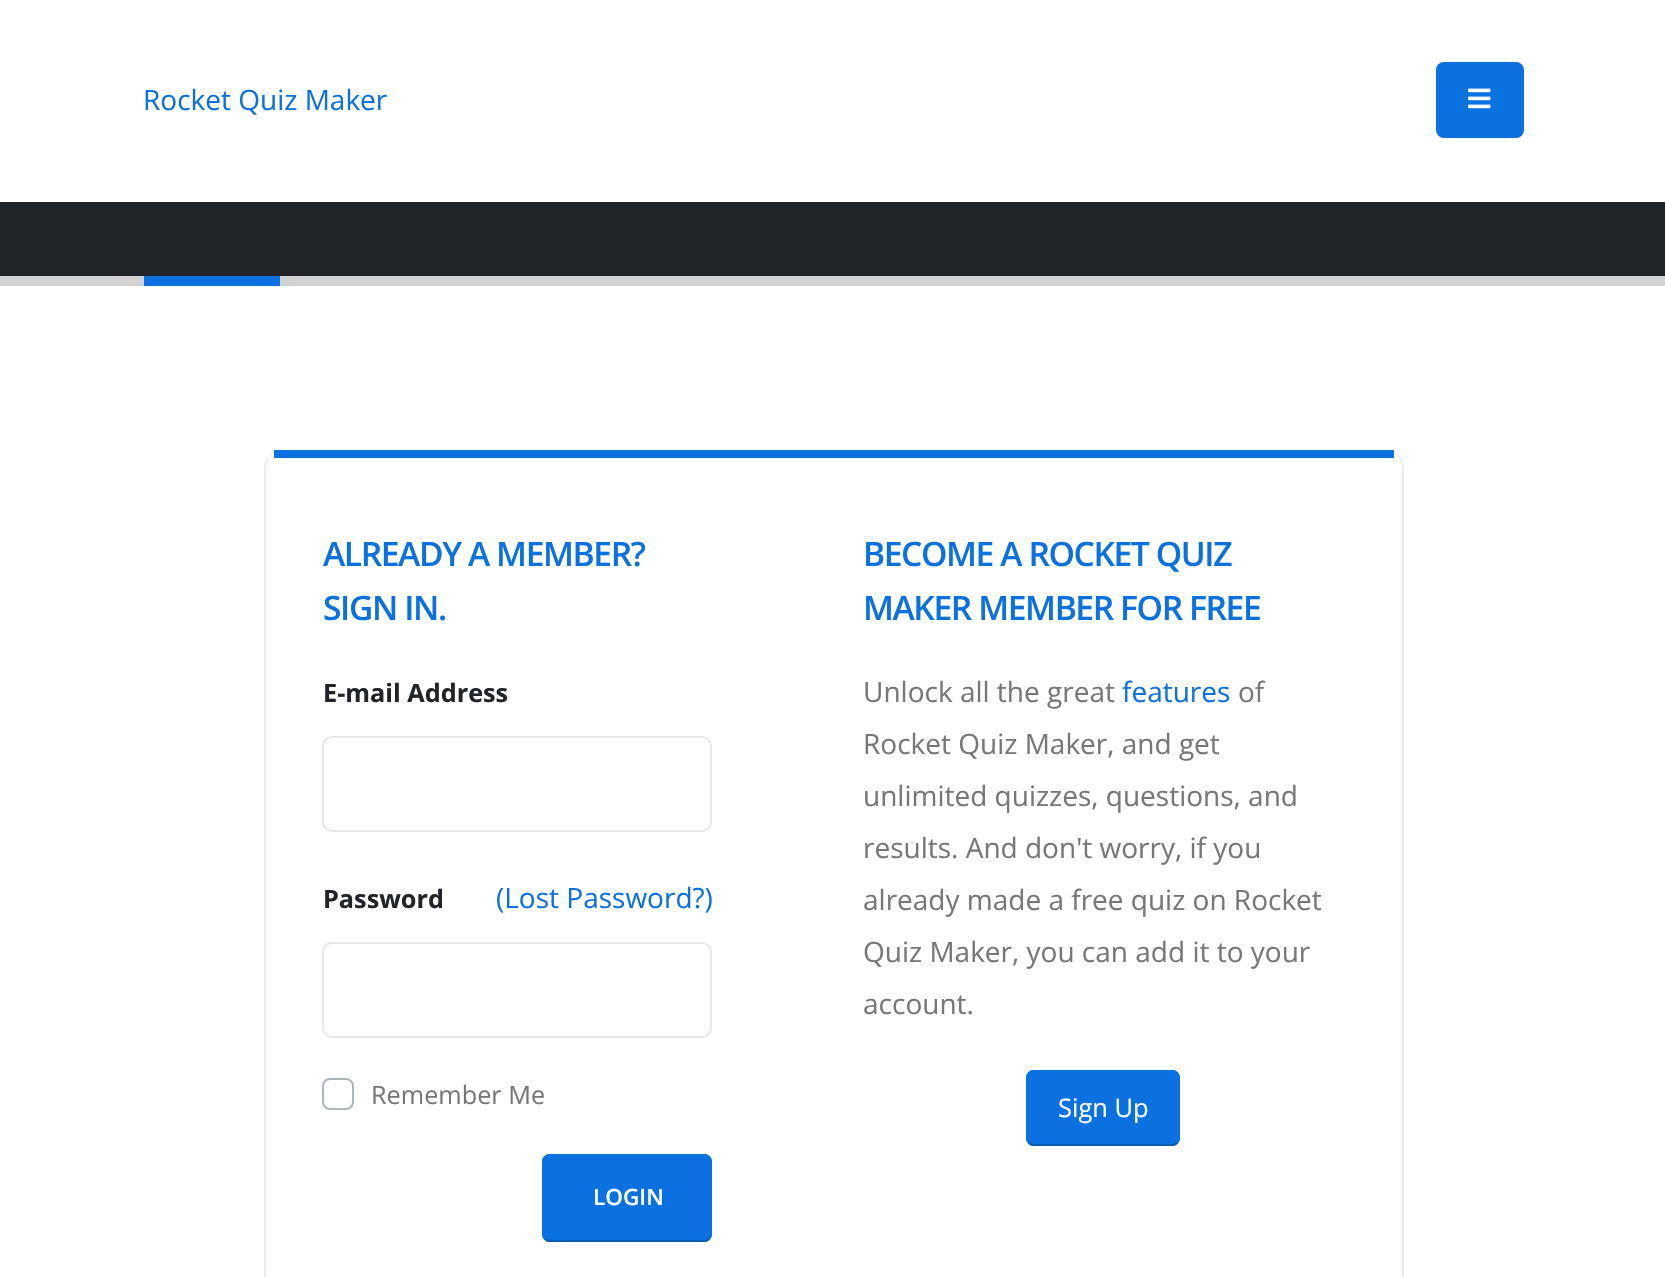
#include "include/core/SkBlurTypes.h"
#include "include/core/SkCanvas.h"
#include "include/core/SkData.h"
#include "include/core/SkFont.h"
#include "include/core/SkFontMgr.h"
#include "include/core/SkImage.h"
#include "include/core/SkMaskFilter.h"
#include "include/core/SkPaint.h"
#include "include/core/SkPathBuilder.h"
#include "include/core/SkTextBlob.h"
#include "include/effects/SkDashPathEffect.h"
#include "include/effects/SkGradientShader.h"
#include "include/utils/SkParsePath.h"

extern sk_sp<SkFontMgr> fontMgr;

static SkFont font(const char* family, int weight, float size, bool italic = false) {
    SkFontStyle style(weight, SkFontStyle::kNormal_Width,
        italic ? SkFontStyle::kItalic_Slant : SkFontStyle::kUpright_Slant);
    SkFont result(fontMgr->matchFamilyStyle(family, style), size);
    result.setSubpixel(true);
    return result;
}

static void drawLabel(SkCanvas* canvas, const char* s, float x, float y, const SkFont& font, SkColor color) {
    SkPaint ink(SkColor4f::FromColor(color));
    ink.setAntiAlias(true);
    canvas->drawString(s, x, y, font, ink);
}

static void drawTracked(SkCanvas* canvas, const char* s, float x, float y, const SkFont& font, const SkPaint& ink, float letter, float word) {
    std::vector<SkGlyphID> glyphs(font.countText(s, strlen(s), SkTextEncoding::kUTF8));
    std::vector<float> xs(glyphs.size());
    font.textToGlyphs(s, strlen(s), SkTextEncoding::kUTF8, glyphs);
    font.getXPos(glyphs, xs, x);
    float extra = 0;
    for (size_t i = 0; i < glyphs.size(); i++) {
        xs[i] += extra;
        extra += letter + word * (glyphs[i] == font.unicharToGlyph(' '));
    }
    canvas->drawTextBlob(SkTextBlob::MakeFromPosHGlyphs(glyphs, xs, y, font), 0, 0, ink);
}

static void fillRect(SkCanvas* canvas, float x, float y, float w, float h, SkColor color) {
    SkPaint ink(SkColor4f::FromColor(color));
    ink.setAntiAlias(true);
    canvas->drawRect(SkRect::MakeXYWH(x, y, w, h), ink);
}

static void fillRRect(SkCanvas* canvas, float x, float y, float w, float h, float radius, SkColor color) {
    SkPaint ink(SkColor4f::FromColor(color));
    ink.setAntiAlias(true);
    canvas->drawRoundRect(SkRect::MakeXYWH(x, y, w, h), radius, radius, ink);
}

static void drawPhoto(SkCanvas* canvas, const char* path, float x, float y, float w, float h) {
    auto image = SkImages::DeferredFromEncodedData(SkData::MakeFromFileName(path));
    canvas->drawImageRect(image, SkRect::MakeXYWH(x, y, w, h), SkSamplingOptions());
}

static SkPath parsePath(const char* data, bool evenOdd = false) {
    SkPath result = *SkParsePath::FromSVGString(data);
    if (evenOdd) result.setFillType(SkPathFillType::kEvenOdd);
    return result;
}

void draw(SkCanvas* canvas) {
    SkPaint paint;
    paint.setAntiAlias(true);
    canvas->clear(0xFFFFFFFF);
    SkFont font1 = font("Open Sans", 400, 28);
    drawLabel(canvas, "Rocket Quiz Maker", 143, 110, font1, 0xFF0B71E1);
    fillRRect(canvas, 1436, 62, 88, 76, 8, 0xFF0B71E1);
    drawPhoto(canvas, "assets/img1.png", 1468, 88, 23, 21);
    fillRect(canvas, 0, 202, 1665, 74, 0xFF212529);
    fillRect(canvas, 0, 276, 1665, 10, 0xFFD3D3D4);
    fillRect(canvas, 144, 276, 136, 10, 0xFF0B71E1);
    paint.setColor(0xFFECECEC);
    canvas->drawPath(parsePath("M1404 468C1404 459 1397 452 1388 452C1396 452 1402 459 1402 468V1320C1402 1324 1400 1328 1398 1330L1399 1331C1402 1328 1404 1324 1404 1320Z"), paint);
    canvas->drawPath(parsePath("M280 452C271 452 264 459 264 468V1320C264 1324 266 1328 269 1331L270 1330C268 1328 266 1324 266 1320V468C266 459 272 452 280 452Z"), paint);
    fillRect(canvas, 274, 450, 1120, 8, 0xFF0B71E1);
    SkFont font2 = font("Open Sans", 600, 33.6f);
    paint.setColor(0xFF0B71E1);
    drawTracked(canvas, "ALREADY A MEMBER?", 323, 566, font2, paint, -1.4f, 0);
    drawTracked(canvas, "SIGN IN.", 323, 620, font2, paint, -1.4f, 0);
    SkFont font3 = font("Open Sans", 700, 25.25f);
    drawLabel(canvas, "E-mail Address", 323, 702, font3, 0xFF212529);
    paint.setStroke(true);
    paint.setStrokeWidth(2);
    paint.setColor(0xFFE8E8E8);
    canvas->drawRoundRect(SkRect::MakeXYWH(323, 737, 388, 94), 9, 9, paint);
    drawLabel(canvas, "Password", 323, 908, font3, 0xFF212529);
    drawLabel(canvas, "(Lost Password?)", 496, 908, font1, 0xFF0B71E1);
    canvas->drawRoundRect(SkRect::MakeXYWH(323, 943, 388, 94), 9, 9, paint);
    paint.setColor(0xFFADB5BD);
    canvas->drawRoundRect(SkRect::MakeXYWH(323, 1079, 30, 30), 7, 7, paint);
    SkFont font4 = font("Open Sans", 400, 25.25f);
    drawLabel(canvas, "Remember Me", 371, 1104, font4, 0xFF777777);
    fillRRect(canvas, 542, 1154, 170, 88, 8, 0xFF0B71E1);
    paint.setColor(0xFF0959B0);
    canvas->drawPath(parsePath("M709 1239C707.5 1240.5 706 1241 704 1241H550C548 1241 546.5 1240.5 545 1239"), paint);
    paint.setColor(0xFF0B71E1);
    canvas->drawPath(parsePath("M545 1239C543.5 1237.5 543 1236 543 1234V1162C543 1160 543.5 1158.5 545 1157C546.5 1155.5 548 1155 550 1155H704C706 1155 707.5 1155.5 709 1157C710.5 1158.5 711 1160 711 1162V1234C711 1236 710.5 1237.5 709 1239"), paint);
    SkFont font5 = font("Open Sans", 600, 22.5f);
    drawLabel(canvas, "LOGIN", 593, 1205, font5, 0xFFFFFFFF);
    paint.setStroke(false);
    drawTracked(canvas, "BECOME A ROCKET QUIZ", 863, 566, font2, paint, -1.4f, 0);
    drawTracked(canvas, "MAKER MEMBER FOR FREE", 863, 620, font2, paint, -1.4f, 0);
    drawLabel(canvas, "Unlock all the great", 863, 702, font1, 0xFF777777);
    drawLabel(canvas, "features", 1122, 702, font1, 0xFF0B71E1);
    drawLabel(canvas, "of", 1238, 702, font1, 0xFF777777);
    drawLabel(canvas, "Rocket Quiz Maker, and get", 863, 754, font1, 0xFF777777);
    drawLabel(canvas, "unlimited quizzes, questions, and", 863, 806, font1, 0xFF777777);
    drawLabel(canvas, "results. And don't worry, if you", 863, 858, font1, 0xFF777777);
    drawLabel(canvas, "already made a free quiz on Rocket", 863, 910, font1, 0xFF777777);
    drawLabel(canvas, "Quiz Maker, you can add it to your", 863, 962, font1, 0xFF777777);
    drawLabel(canvas, "account.", 863, 1014, font1, 0xFF777777);
    fillRRect(canvas, 1026, 1070, 154, 76, 8, 0xFF0B71E1);
    paint.setStroke(true);
    paint.setColor(0xFF0959B0);
    canvas->drawPath(parsePath("M1177 1143C1175.5 1144.5 1174 1145 1172 1145H1034C1032 1145 1030.5 1144.5 1029 1143"), paint);
    paint.setColor(0xFF0B71E1);
    canvas->drawPath(parsePath("M1029 1143C1027.5 1141.5 1027 1140 1027 1138V1078C1027 1076 1027.5 1074.5 1029 1073C1030.5 1071.5 1032 1071 1034 1071H1172C1174 1071 1175.5 1071.5 1177 1073C1178.5 1074.5 1179 1076 1179 1078V1138C1179 1140 1178.5 1141.5 1177 1143"), paint);
    SkFont font6 = font("Open Sans", 400, 25.5f);
    drawLabel(canvas, "Sign Up", 1058, 1117, font6, 0xFFFFFFFF);
}
